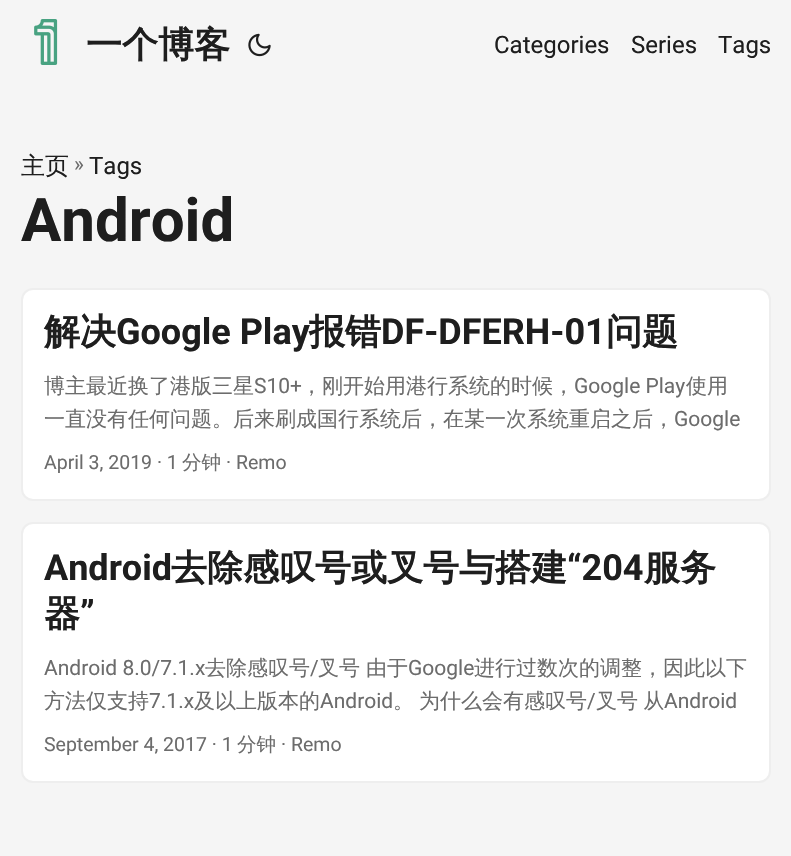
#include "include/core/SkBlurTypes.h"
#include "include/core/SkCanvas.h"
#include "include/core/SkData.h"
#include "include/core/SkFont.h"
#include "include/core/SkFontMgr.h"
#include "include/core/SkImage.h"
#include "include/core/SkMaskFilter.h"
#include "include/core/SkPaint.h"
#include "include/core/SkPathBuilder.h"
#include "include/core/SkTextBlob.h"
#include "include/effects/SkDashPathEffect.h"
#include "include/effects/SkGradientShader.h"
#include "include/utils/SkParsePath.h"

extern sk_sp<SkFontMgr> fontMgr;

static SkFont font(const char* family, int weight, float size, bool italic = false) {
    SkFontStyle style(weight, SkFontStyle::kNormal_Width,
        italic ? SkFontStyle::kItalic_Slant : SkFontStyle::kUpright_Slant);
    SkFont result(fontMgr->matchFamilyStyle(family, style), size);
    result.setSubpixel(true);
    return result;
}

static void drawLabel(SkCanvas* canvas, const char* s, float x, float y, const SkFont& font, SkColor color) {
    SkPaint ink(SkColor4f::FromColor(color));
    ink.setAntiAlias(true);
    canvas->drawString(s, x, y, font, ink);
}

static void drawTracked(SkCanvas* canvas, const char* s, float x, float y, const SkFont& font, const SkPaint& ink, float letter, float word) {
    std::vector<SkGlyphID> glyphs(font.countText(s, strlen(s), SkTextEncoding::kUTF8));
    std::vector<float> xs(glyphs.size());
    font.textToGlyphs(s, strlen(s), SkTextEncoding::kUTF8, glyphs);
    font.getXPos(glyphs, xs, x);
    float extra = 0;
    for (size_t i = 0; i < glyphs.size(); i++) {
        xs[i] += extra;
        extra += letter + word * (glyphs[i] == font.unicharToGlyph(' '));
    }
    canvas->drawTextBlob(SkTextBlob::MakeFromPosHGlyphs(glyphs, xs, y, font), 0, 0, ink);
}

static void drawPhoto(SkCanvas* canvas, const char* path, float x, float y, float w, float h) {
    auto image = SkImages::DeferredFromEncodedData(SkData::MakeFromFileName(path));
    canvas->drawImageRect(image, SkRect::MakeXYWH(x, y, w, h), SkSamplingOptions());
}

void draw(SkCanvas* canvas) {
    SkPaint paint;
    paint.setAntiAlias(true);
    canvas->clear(0xFFF5F5F5);
    drawPhoto(canvas, "assets/img1.png", 34, 19, 24, 46);
    SkFont font1 = font("WenQuanYi Zen Hei", 700, 36);
    drawLabel(canvas, "一个博客", 86, 57, font1, 0xFF1E1E1E);
    drawPhoto(canvas, "assets/img2.png", 248, 33, 23, 24);
    SkFont font2 = font("Roboto", 400, 24);
    drawLabel(canvas, "Categories", 494, 53, font2, 0xFF1E1E1E);
    drawLabel(canvas, "Series", 631, 53, font2, 0xFF1E1E1E);
    drawLabel(canvas, "Tags", 718, 53, font2, 0xFF1E1E1E);
    SkFont font3 = font("WenQuanYi Zen Hei", 500, 24);
    drawLabel(canvas, "主页", 21, 174, font3, 0xFF1E1E1E);
    SkFont font4 = font("Roboto", 400, 21);
    drawLabel(canvas, "»", 74, 171, font4, 0xFF6C6C6C);
    drawLabel(canvas, "Tags", 89, 174, font2, 0xFF1E1E1E);
    SkFont font5 = font("Roboto", 700, 60);
    drawLabel(canvas, "Android", 21, 241, font5, 0xFF1E1E1E);
    paint.setColor(0xFFFFFFFF);
    canvas->drawRoundRect(SkRect::MakeXYWH(22, 289, 748, 211), 11, 11, paint);
    paint.setStroke(true);
    paint.setStrokeWidth(2);
    paint.setColor(0xFFEEEEEE);
    canvas->drawRoundRect(SkRect::MakeXYWH(22, 289, 748, 211), 11, 11, paint);
    drawLabel(canvas, "解决", 44, 344, font1, 0xFF1E1E1E);
    SkFont font6 = font("Roboto", 700, 36);
    drawLabel(canvas, "Google Play", 116, 344, font6, 0xFF1E1E1E);
    drawLabel(canvas, "报错", 309, 344, font1, 0xFF1E1E1E);
    drawLabel(canvas, "DF-DFERH-01", 381, 344, font6, 0xFF1E1E1E);
    drawLabel(canvas, "问题", 606, 344, font1, 0xFF1E1E1E);
    SkFont font7 = font("WenQuanYi Zen Hei", 500, 21);
    drawLabel(canvas, "博主最近换了港版三星", 44, 393, font7, 0xFF6C6C6C);
    drawLabel(canvas, "S10+", 254, 393, font4, 0xFF6C6C6C);
    drawLabel(canvas, "，刚开始用港行系统的时候，", 301, 393, font7, 0xFF6C6C6C);
    drawLabel(canvas, "Google Play", 574, 393, font4, 0xFF6C6C6C);
    drawLabel(canvas, "使用", 686, 393, font7, 0xFF6C6C6C);
    drawLabel(canvas, "一直没有任何问题。后来刷成国行系统后，在某一次系统重启之后，", 44, 426, font7, 0xFF6C6C6C);
    drawLabel(canvas, "Google", 674, 426, font4, 0xFF6C6C6C);
    SkFont font8 = font("Roboto", 400, 19.5f);
    drawLabel(canvas, "April 3, 2019 · 1", 44, 469, font8, 0xFF6C6C6C);
    SkFont font9 = font("WenQuanYi Zen Hei", 500, 19.5f);
    drawLabel(canvas, "分钟", 182, 469, font9, 0xFF6C6C6C);
    drawLabel(canvas, "· Remo", 226, 469, font8, 0xFF6C6C6C);
    paint.setStroke(false);
    paint.setColor(0xFFFFFFFF);
    canvas->drawRoundRect(SkRect::MakeXYWH(22, 523, 748, 259), 11, 11, paint);
    paint.setStroke(true);
    paint.setColor(0xFFEEEEEE);
    canvas->drawRoundRect(SkRect::MakeXYWH(22, 523, 748, 259), 11, 11, paint);
    drawLabel(canvas, "Android", 44, 580, font6, 0xFF1E1E1E);
    drawLabel(canvas, "去除感叹号或叉号与搭建", 171, 580, font1, 0xFF1E1E1E);
    drawLabel(canvas, "“204", 567, 580, font6, 0xFF1E1E1E);
    drawLabel(canvas, "服务", 644, 580, font1, 0xFF1E1E1E);
    drawLabel(canvas, "器", 44, 626, font1, 0xFF1E1E1E);
    drawLabel(canvas, "”", 80, 626, font6, 0xFF1E1E1E);
    drawLabel(canvas, "Android 8.0/7.1.x", 44, 675, font4, 0xFF6C6C6C);
    drawLabel(canvas, "去除感叹号", 205, 675, font7, 0xFF6C6C6C);
    drawLabel(canvas, "/", 310, 675, font4, 0xFF6C6C6C);
    drawLabel(canvas, "叉号", 318, 675, font7, 0xFF6C6C6C);
    drawLabel(canvas, "由于", 366, 675, font7, 0xFF6C6C6C);
    drawLabel(canvas, "Google", 408, 675, font4, 0xFF6C6C6C);
    drawLabel(canvas, "进行过数次的调整，因此以下", 474, 675, font7, 0xFF6C6C6C);
    drawLabel(canvas, "方法仅支持", 44, 708, font7, 0xFF6C6C6C);
    drawLabel(canvas, "7.1.x", 149, 708, font4, 0xFF6C6C6C);
    drawLabel(canvas, "及以上版本的", 194, 708, font7, 0xFF6C6C6C);
    drawLabel(canvas, "Android", 320, 708, font4, 0xFF6C6C6C);
    drawLabel(canvas, "。", 393, 708, font7, 0xFF6C6C6C);
    drawLabel(canvas, "为什么会有感叹号", 419, 708, font7, 0xFF6C6C6C);
    drawLabel(canvas, "/", 587, 708, font4, 0xFF6C6C6C);
    paint.setStroke(false);
    paint.setColor(0xFF6C6C6C);
    drawTracked(canvas, "叉号 从", 596, 708, font7, paint, 0, -1);
    drawLabel(canvas, "Android", 664, 708, font4, 0xFF6C6C6C);
    drawLabel(canvas, "September 4, 2017 · 1", 44, 751, font8, 0xFF6C6C6C);
    drawLabel(canvas, "分钟", 237, 751, font9, 0xFF6C6C6C);
    drawLabel(canvas, "· Remo", 281, 751, font8, 0xFF6C6C6C);
}
